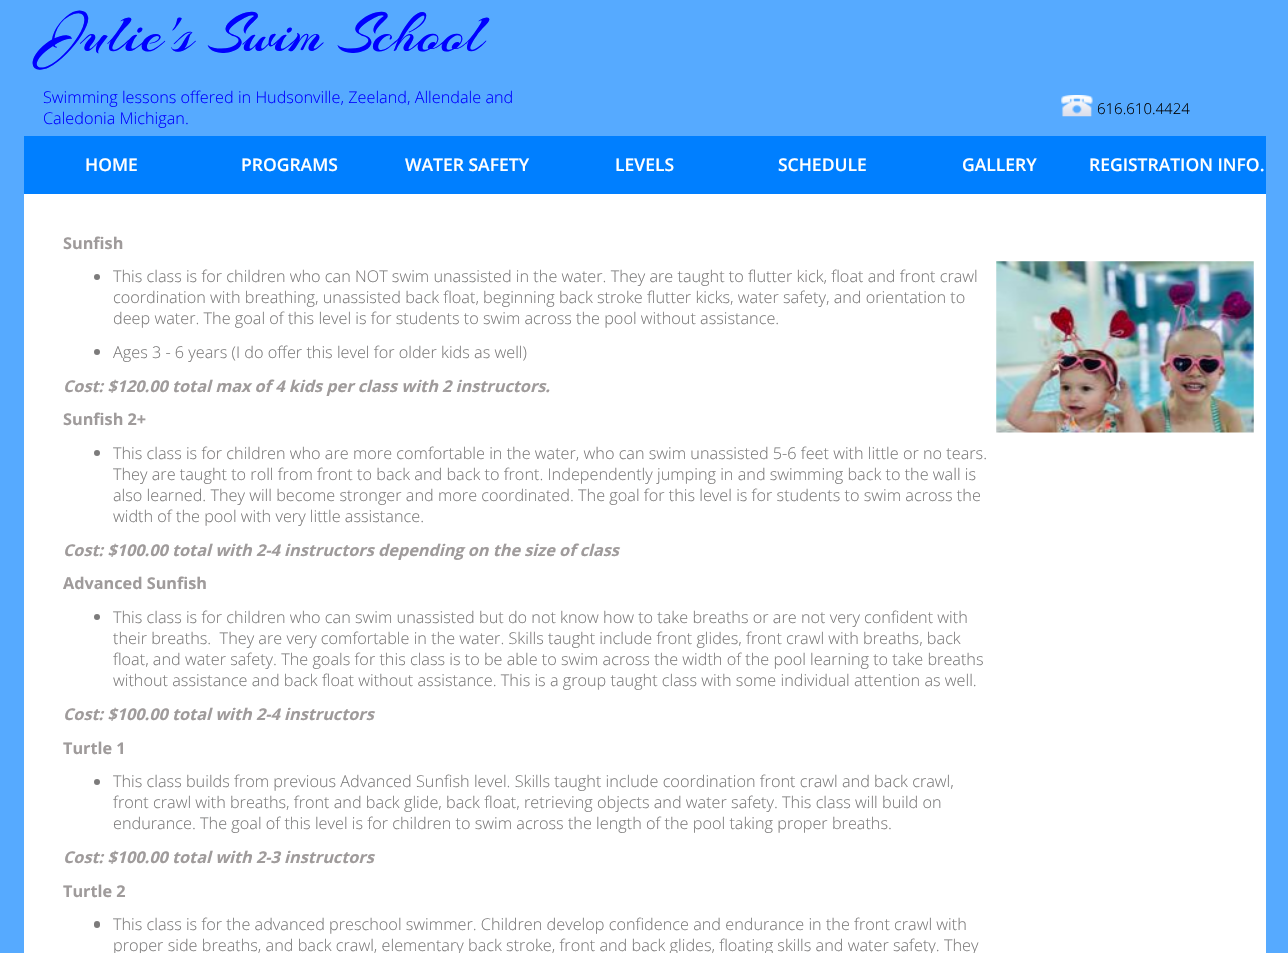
#include "include/core/SkBlurTypes.h"
#include "include/core/SkCanvas.h"
#include "include/core/SkData.h"
#include "include/core/SkFont.h"
#include "include/core/SkFontMgr.h"
#include "include/core/SkImage.h"
#include "include/core/SkMaskFilter.h"
#include "include/core/SkPaint.h"
#include "include/core/SkPathBuilder.h"
#include "include/core/SkTextBlob.h"
#include "include/effects/SkDashPathEffect.h"
#include "include/effects/SkGradientShader.h"
#include "include/utils/SkParsePath.h"

extern sk_sp<SkFontMgr> fontMgr;

static SkFont font(const char* family, int weight, float size, bool italic = false) {
    SkFontStyle style(weight, SkFontStyle::kNormal_Width,
        italic ? SkFontStyle::kItalic_Slant : SkFontStyle::kUpright_Slant);
    SkFont result(fontMgr->matchFamilyStyle(family, style), size);
    result.setSubpixel(true);
    return result;
}

static void drawLabel(SkCanvas* canvas, const char* s, float x, float y, const SkFont& font, SkColor color) {
    SkPaint ink(SkColor4f::FromColor(color));
    ink.setAntiAlias(true);
    canvas->drawString(s, x, y, font, ink);
}

static void fillRect(SkCanvas* canvas, float x, float y, float w, float h, SkColor color) {
    SkPaint ink(SkColor4f::FromColor(color));
    ink.setAntiAlias(true);
    canvas->drawRect(SkRect::MakeXYWH(x, y, w, h), ink);
}

static void fillRRect(SkCanvas* canvas, float x, float y, float w, float h, float radius, SkColor color) {
    SkPaint ink(SkColor4f::FromColor(color));
    ink.setAntiAlias(true);
    canvas->drawRoundRect(SkRect::MakeXYWH(x, y, w, h), radius, radius, ink);
}

static void drawPhoto(SkCanvas* canvas, const char* path, float x, float y, float w, float h) {
    auto image = SkImages::DeferredFromEncodedData(SkData::MakeFromFileName(path));
    canvas->drawImageRect(image, SkRect::MakeXYWH(x, y, w, h), SkSamplingOptions());
}

void draw(SkCanvas* canvas) {
    SkPaint paint;
    paint.setAntiAlias(true);
    canvas->clear(0xFF56AAFF);
    fillRect(canvas, 24, 194, 1242, 759, 0xFFFFFFFF);
    SkFont font1 = font("Arizonia", 400, 60);
    drawLabel(canvas, "Julie's Swim School", 43, 51, font1, 0xFF0000FF);
    SkFont font2 = font("Open Sans", 300, 16.25f);
    drawLabel(canvas, "Swimming lessons offered in Hudsonville, Zeeland, Allendale and", 43, 103, font2, 0xFF0000FF);
    drawLabel(canvas, "Caledonia Michigan.", 43, 124, font2, 0xFF0000FF);
    drawPhoto(canvas, "assets/img1.png", 1061, 95, 32, 22);
    SkFont font3 = font("Open Sans", 300, 15);
    drawLabel(canvas, "616.610.4424", 1097, 114, font3, 0xFF000000);
    fillRect(canvas, 24, 136, 1242, 58, 0xFF007FFF);
    SkFont font4 = font("Open Sans", 600, 17.5f);
    drawLabel(canvas, "HOME", 85, 171, font4, 0xFFFFFFFF);
    drawLabel(canvas, "PROGRAMS", 241, 171, font4, 0xFFFFFFFF);
    drawLabel(canvas, "WATER SAFETY", 405, 171, font4, 0xFFFFFFFF);
    drawLabel(canvas, "LEVELS", 615, 171, font4, 0xFFFFFFFF);
    drawLabel(canvas, "SCHEDULE", 778, 171, font4, 0xFFFFFFFF);
    drawLabel(canvas, "GALLERY", 962, 171, font4, 0xFFFFFFFF);
    drawLabel(canvas, "REGISTRATION INFO.", 1089, 171, font4, 0xFFFFFFFF);
    SkFont font5 = font("Open Sans", 700, 16.25f);
    drawLabel(canvas, "Sunfish", 63, 249, font5, 0xFF9F9B9B);
    paint.setColor(0xFF7C7B7B);
    canvas->drawCircle(97, 277, 3, paint);
    drawLabel(canvas, "This class is for children who can NOT swim unassisted in the water. They are taught to flutter kick, float and front crawl", 113, 282, font2, 0xFF7C7B7B);
    drawLabel(canvas, "coordination with breathing, unassisted back float, beginning back stroke flutter kicks, water safety, and orientation to", 113, 303, font2, 0xFF7C7B7B);
    drawLabel(canvas, "deep water. The goal of this level is for students to swim across the pool without assistance.", 113, 324, font2, 0xFF7C7B7B);
    canvas->drawCircle(97, 352, 3, paint);
    drawLabel(canvas, "Ages 3 - 6 years (I do offer this level for older kids as well)", 113, 358, font2, 0xFF7C7B7B);
    SkFont font6 = font("Open Sans", 700, 16.25f, true);
    drawLabel(canvas, "Cost: $120.00 total max of 4 kids per class with 2 instructors.", 63, 392, font6, 0xFF9F9B9B);
    drawLabel(canvas, "Sunfish 2+", 63, 425, font5, 0xFF9F9B9B);
    canvas->drawCircle(97, 453, 3, paint);
    drawLabel(canvas, "This class is for children who are more comfortable in the water, who can swim unassisted 5-6 feet with little or no tears.", 113, 459, font2, 0xFF7C7B7B);
    drawLabel(canvas, "They are taught to roll from front to back and back to front. Independently jumping in and swimming back to the wall is", 113, 480, font2, 0xFF7C7B7B);
    drawLabel(canvas, "also learned. They will become stronger and more coordinated. The goal for this level is for students to swim across the", 113, 501, font2, 0xFF7C7B7B);
    drawLabel(canvas, "width of the pool with very little assistance.", 113, 522, font2, 0xFF7C7B7B);
    drawLabel(canvas, "Cost: $100.00 total with 2-4 instructors depending on the size of class", 63, 556, font6, 0xFF9F9B9B);
    drawLabel(canvas, "Advanced Sunfish", 63, 589, font5, 0xFF9F9B9B);
    canvas->drawCircle(97, 617, 3, paint);
    drawLabel(canvas, "This class is for children who can swim unassisted but do not know how to take breaths or are not very confident with", 113, 623, font2, 0xFF7C7B7B);
    drawLabel(canvas, "their breaths.  They are very comfortable in the water. Skills taught include front glides, front crawl with breaths, back", 113, 644, font2, 0xFF7C7B7B);
    drawLabel(canvas, "float, and water safety. The goals for this class is to be able to swim across the width of the pool learning to take breaths", 113, 665, font2, 0xFF7C7B7B);
    drawLabel(canvas, "without assistance and back float without assistance. This is a group taught class with some individual attention as well.", 113, 686, font2, 0xFF7C7B7B);
    drawLabel(canvas, "Cost: $100.00 total with 2-4 instructors", 63, 720, font6, 0xFF9F9B9B);
    drawLabel(canvas, "Turtle 1", 63, 754, font5, 0xFF9F9B9B);
    canvas->drawCircle(97, 782, 3, paint);
    drawLabel(canvas, "This class builds from previous Advanced Sunfish level. Skills taught include coordination front crawl and back crawl,", 113, 787, font2, 0xFF7C7B7B);
    drawLabel(canvas, "front crawl with breaths, front and back glide, back float, retrieving objects and water safety. This class will build on", 113, 808, font2, 0xFF7C7B7B);
    drawLabel(canvas, "endurance. The goal of this level is for children to swim across the length of the pool taking proper breaths.", 113, 829, font2, 0xFF7C7B7B);
    drawLabel(canvas, "Cost: $100.00 total with 2-3 instructors", 63, 863, font6, 0xFF9F9B9B);
    drawLabel(canvas, "Turtle 2", 63, 897, font5, 0xFF9F9B9B);
    fillRRect(canvas, 94, 921, 6, 7, 3, 0xFF7C7B7B);
    drawLabel(canvas, "This class is for the advanced preschool swimmer. Children develop confidence and endurance in the front crawl with", 113, 930, font2, 0xFF7C7B7B);
    drawLabel(canvas, "proper side breaths, and back crawl, elementary back stroke, front and back glides, floating skills and water safety. They", 113, 951, font2, 0xFF7C7B7B);
    drawPhoto(canvas, "assets/img2.png", 996, 261, 258, 172);
}
